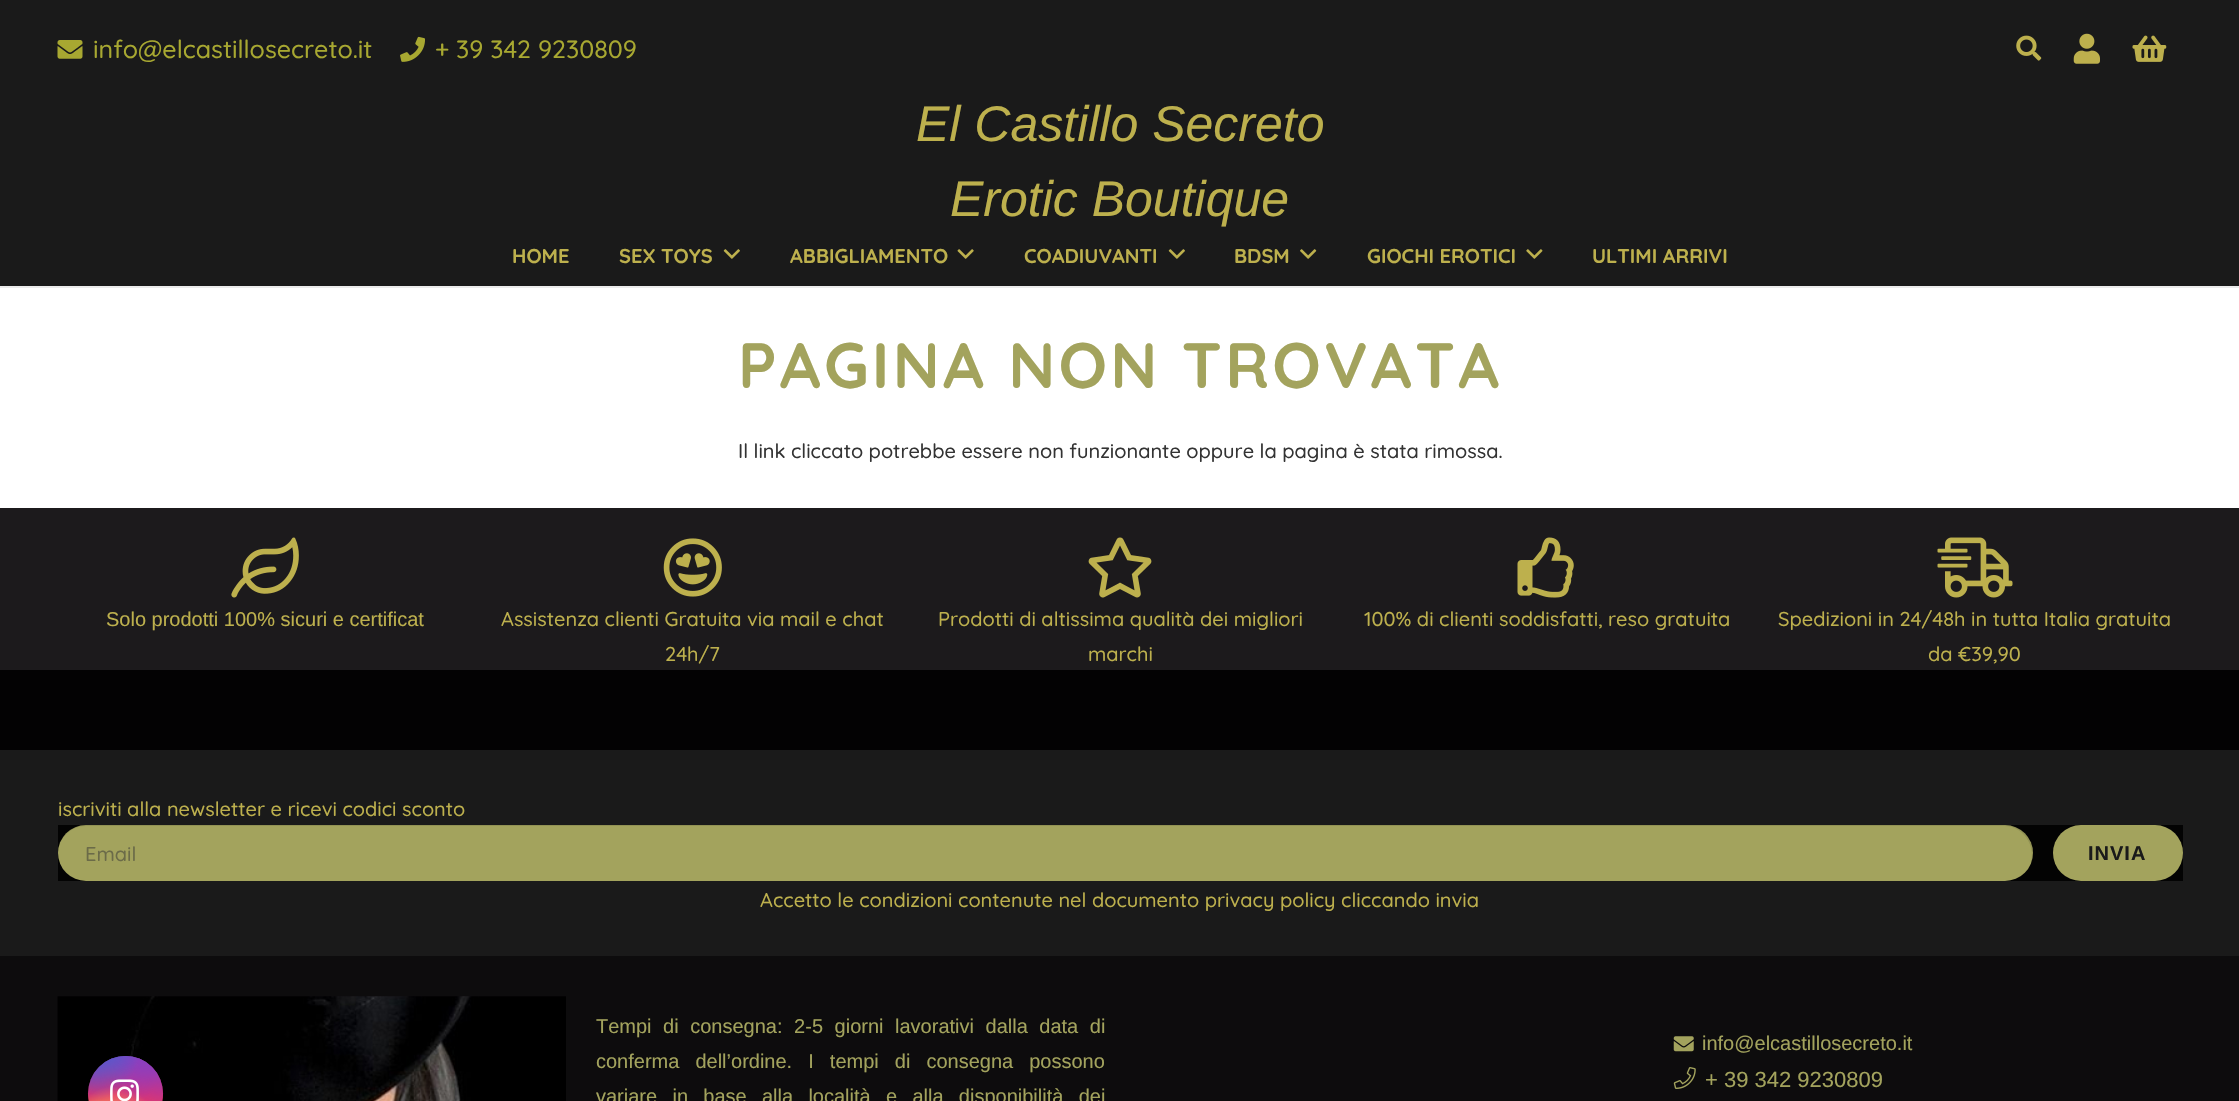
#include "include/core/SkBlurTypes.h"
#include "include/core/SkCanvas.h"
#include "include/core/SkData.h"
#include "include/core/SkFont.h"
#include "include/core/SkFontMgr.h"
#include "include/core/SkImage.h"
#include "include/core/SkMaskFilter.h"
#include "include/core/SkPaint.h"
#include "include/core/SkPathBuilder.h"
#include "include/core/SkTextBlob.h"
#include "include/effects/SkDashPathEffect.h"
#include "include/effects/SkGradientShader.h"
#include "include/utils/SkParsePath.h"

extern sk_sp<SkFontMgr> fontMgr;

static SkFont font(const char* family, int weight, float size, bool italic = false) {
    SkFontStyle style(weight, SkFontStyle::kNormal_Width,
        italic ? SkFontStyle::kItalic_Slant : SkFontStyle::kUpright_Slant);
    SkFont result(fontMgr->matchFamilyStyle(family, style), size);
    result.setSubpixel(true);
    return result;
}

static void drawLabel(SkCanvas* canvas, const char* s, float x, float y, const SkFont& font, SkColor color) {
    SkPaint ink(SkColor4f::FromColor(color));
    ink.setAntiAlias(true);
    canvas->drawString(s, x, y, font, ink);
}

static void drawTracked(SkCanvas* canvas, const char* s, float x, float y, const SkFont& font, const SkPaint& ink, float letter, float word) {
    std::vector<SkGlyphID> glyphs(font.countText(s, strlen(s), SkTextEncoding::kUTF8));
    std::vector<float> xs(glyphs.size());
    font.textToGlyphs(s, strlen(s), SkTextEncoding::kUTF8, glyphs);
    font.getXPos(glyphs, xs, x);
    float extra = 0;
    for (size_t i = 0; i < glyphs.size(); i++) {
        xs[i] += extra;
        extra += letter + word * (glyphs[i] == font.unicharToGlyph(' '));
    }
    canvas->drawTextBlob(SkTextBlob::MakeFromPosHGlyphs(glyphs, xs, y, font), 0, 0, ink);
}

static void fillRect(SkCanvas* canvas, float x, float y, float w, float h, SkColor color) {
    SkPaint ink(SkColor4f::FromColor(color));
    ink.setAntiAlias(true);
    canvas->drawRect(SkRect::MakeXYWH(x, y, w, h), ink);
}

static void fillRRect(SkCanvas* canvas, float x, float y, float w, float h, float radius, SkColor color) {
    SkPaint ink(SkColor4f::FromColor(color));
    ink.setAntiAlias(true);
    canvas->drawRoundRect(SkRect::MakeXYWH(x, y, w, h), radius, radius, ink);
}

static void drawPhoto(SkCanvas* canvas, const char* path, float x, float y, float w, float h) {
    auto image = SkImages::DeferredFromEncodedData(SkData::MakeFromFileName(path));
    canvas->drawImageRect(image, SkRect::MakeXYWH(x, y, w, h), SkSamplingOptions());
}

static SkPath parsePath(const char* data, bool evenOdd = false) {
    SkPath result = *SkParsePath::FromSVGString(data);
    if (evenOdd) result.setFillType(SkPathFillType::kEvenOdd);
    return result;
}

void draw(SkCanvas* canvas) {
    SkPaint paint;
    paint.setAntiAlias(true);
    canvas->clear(0xFFFFFFFF);
    fillRect(canvas, 0, 0, 2239, 286, 0xFF1A1A1A);
    drawPhoto(canvas, "assets/img1.png", 57, 40, 26, 19);
    SkFont font1 = font("Quicksand", 500, 25);
    drawLabel(canvas, "info@elcastillosecreto.it", 93, 58, font1, 0xFFA8A831);
    drawPhoto(canvas, "assets/img2.png", 400, 36, 25, 26);
    drawLabel(canvas, "+ 39 342 9230809", 435, 58, font1, 0xFFA8A831);
    drawPhoto(canvas, "assets/img3.png", 2016, 35, 26, 26);
    drawPhoto(canvas, "assets/img4.png", 2073, 33, 27, 31);
    drawPhoto(canvas, "assets/img5.png", 2132, 35, 35, 27);
    SkFont font2 = font("Liberation Sans", 400, 50, true);
    drawLabel(canvas, "El Castillo Secreto", 916, 141, font2, 0xFFBDB04D);
    drawLabel(canvas, "Erotic Boutique", 950, 216, font2, 0xFFBDB04D);
    fillRect(canvas, 0, 286, 2239, 2, 0xFFEBEBEB);
    SkFont font3 = font("Quicksand", 700, 20);
    drawLabel(canvas, "HOME", 512, 263, font3, 0xFFBDB04D);
    drawLabel(canvas, "SEX TOYS", 619, 263, font3, 0xFFBDB04D);
    drawPhoto(canvas, "assets/img6.png", 723, 249, 17, 10);
    drawLabel(canvas, "ABBIGLIAMENTO", 790, 263, font3, 0xFFBDB04D);
    drawPhoto(canvas, "assets/img7.png", 957, 249, 17, 10);
    drawLabel(canvas, "COADIUVANTI", 1024, 263, font3, 0xFFBDB04D);
    drawPhoto(canvas, "assets/img6.png", 1168, 249, 17, 10);
    drawLabel(canvas, "BDSM", 1234, 263, font3, 0xFFBDB04D);
    drawPhoto(canvas, "assets/img8.png", 1300, 249, 17, 10);
    drawLabel(canvas, "GIOCHI EROTICI", 1367, 263, font3, 0xFFBDB04D);
    drawPhoto(canvas, "assets/img9.png", 1526, 249, 17, 10);
    drawLabel(canvas, "ULTIMI ARRIVI", 1592, 263, font3, 0xFFBDB04D);
    SkFont font4 = font("Quicksand", 700, 64);
    paint.setColor(0xFFA3A35D);
    drawTracked(canvas, "PAGINA NON TROVATA", 738, 388, font4, paint, 3.25f, 0);
    SkFont font5 = font("Quicksand", 500, 20);
    drawLabel(canvas, "Il link cliccato potrebbe essere non funzionante oppure la pagina è stata rimossa.", 738, 458, font5, 0xFF333333);
    fillRect(canvas, 0, 508, 2239, 162, 0xFF1C1A1C);
    drawPhoto(canvas, "assets/img10.png", 231, 537, 68, 61);
    SkFont font6 = font("Liberation Sans", 400, 20);
    drawLabel(canvas, "Solo prodotti 100% sicuri e certificat", 106, 626, font6, 0xFFBDB04D);
    drawPhoto(canvas, "assets/img11.png", 663, 538, 59, 59);
    drawLabel(canvas, "Assistenza clienti Gratuita via mail e chat", 501, 626, font5, 0xFFBDB04D);
    drawLabel(canvas, "24h/7", 665, 661, font5, 0xFFBDB04D);
    drawPhoto(canvas, "assets/img12.png", 1088, 537, 64, 61);
    drawLabel(canvas, "Prodotti di altissima qualità dei migliori", 938, 626, font5, 0xFFBDB04D);
    drawLabel(canvas, "marchi", 1088, 661, font5, 0xFFBDB04D);
    drawPhoto(canvas, "assets/img13.png", 1517, 537, 57, 61);
    drawLabel(canvas, "100% di clienti soddisfatti, reso gratuita", 1364, 626, font5, 0xFFBDB04D);
    drawPhoto(canvas, "assets/img14.png", 1937, 537, 76, 61);
    drawLabel(canvas, "Spedizioni in 24/48h in tutta Italia gratuita", 1778, 626, font5, 0xFFBDB04D);
    drawLabel(canvas, "da €39,90", 1928, 661, font5, 0xFFBDB04D);
    fillRect(canvas, 0, 670, 2239, 80, 0xFF030203);
    fillRect(canvas, 0, 750, 2239, 206, 0xFF1A1A1A);
    drawLabel(canvas, "iscriviti alla newsletter e ricevi codici sconto", 58, 816, font5, 0xFFBDB04D);
    fillRect(canvas, 58, 825, 2125, 56, 0xFF030303);
    fillRRect(canvas, 58, 825, 1975, 56, 28, 0xFFA3A35D);
    paint.setColor(0x1A000000);
    canvas->drawPath(parsePath("M86 826H2004C2026 826 2039 851 2028 870C2038 855 2032 834 2016 827C2012 826 2009 825 2005 825H86C71 825 58 838 58 854C58 839 70 826 86 826Z"), paint);
    drawLabel(canvas, "Email", 85, 861, font5, 0xFF6B6B48);
    fillRRect(canvas, 2053, 825, 130, 56, 28, 0xFFA3A35D);
    SkFont font7 = font("Liberation Sans", 700, 20);
    paint.setColor(0xFF1A1A1A);
    drawTracked(canvas, "INVIA", 2088, 860, font7, paint, 1, 0);
    drawLabel(canvas, "Accetto le condizioni contenute nel documento privacy policy cliccando invia", 760, 907, font5, 0xFFBDB04D);
    fillRect(canvas, 0, 956, 2239, 145, 0xFF0D0C0D);
    drawPhoto(canvas, "assets/img15.png", 57, 996, 509, 105);
    {
        const SkColor colors[] = {0xFF6559CA, 0xFFBC318F, 0xFFE42E66, 0xFFFA5332, 0xFFFFDC80};
        const float stops[] = {0, 0.3f, 0.5f, 0.7f, 1};
        const SkPoint ends[] = {{125, 1056}, {125, 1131}};
        paint.setShader(SkGradientShader::MakeLinear(ends, colors, stops, 5, SkTileMode::kClamp));
        paint.setAlpha(255);
    }
    canvas->drawCircle(125.5f, 1093.5f, 37.5f, paint);
    {
        const SkColor colors[] = {0xFFD9317A, 0x00D9317A};
        const float stops[] = {0, 1};
        paint.setShader(SkGradientShader::MakeRadial({163, 1131}, 106, colors, stops, 2, SkTileMode::kClamp));
        paint.setAlpha(255);
    }
    canvas->drawCircle(125.5f, 1093.5f, 37.5f, paint);
    {
        const SkColor colors[] = {0xFF893DC2, 0x00893DC2};
        const float stops[] = {0, 0.5f};
        SkMatrix m = SkMatrix::Translate(133, 1041).preScale(64, 127);
        paint.setShader(SkGradientShader::MakeRadial({0, 0}, 1, colors, stops, 2, SkTileMode::kClamp, 0, &m));
        paint.setAlpha(255);
    }
    canvas->drawCircle(125.5f, 1093.5f, 37.5f, paint);
    {
        const SkColor colors[] = {0xFF893DC2, 0x00893DC2};
        const float stops[] = {0, 0.5f};
        paint.setShader(SkGradientShader::MakeRadial({163, 1056}, 106, colors, stops, 2, SkTileMode::kClamp));
        paint.setAlpha(255);
    }
    canvas->drawCircle(125.5f, 1093.5f, 37.5f, paint);
    {
        const SkColor colors[] = {0xFF5258CF, 0x005258CF};
        const float stops[] = {0, 0.5f};
        SkMatrix m = SkMatrix::Translate(103, 1019).preScale(85, 159);
        paint.setShader(SkGradientShader::MakeRadial({0, 0}, 1, colors, stops, 2, SkTileMode::kClamp, 0, &m));
        paint.setAlpha(255);
    }
    canvas->drawCircle(125.5f, 1093.5f, 37.5f, paint);
    {
        const SkColor colors[] = {0xFF5258CF, 0x005258CF};
        const float stops[] = {0, 0.5f};
        SkMatrix m = SkMatrix::Translate(88, 1038).preScale(106, 133);
        paint.setShader(SkGradientShader::MakeRadial({0, 0}, 1, colors, stops, 2, SkTileMode::kClamp, 0, &m));
        paint.setAlpha(255);
    }
    canvas->drawCircle(125.5f, 1093.5f, 37.5f, paint);
    {
        const SkColor colors[] = {0xFFFEDA7E, 0x00FEDA7E};
        const float stops[] = {0, 0.5f};
        paint.setShader(SkGradientShader::MakeRadial({95, 1161}, 125, colors, stops, 2, SkTileMode::kClamp));
        paint.setAlpha(255);
    }
    canvas->drawRect(SkRect::MakeXYWH(89, 1100, 15, 1), paint);
    {
        const SkColor colors[] = {0xFFFEC564, 0x00FEC564};
        const float stops[] = {0, 0.5f};
        paint.setShader(SkGradientShader::MakeRadial({114, 1131}, 89, colors, stops, 2, SkTileMode::kClamp));
        paint.setAlpha(255);
    }
    canvas->drawCircle(125.5f, 1093.5f, 37.5f, paint);
    drawPhoto(canvas, "assets/img16.png", 110, 1079, 29, 22);
    paint.setShader(nullptr);
    paint.setColor(0xFFA3A35D);
    drawTracked(canvas, "Tempi di consegna: 2-5 giorni lavorativi dalla data di", 596, 1033, font6, paint, 0, 6);
    drawTracked(canvas, "conferma dell’ordine. I tempi di consegna possono", 596, 1068, font6, paint, 0, 10.5f);
    drawTracked(canvas, "variare in base alla località e alla disponibilità dei", 596, 1103, font6, paint, 0, 9.75f);
    drawPhoto(canvas, "assets/img17.png", 1673, 1036, 21, 16);
    drawLabel(canvas, "info@elcastillosecreto.it", 1702, 1050, font6, 0xFFA3A35D);
    drawPhoto(canvas, "assets/img18.png", 1673, 1067, 23, 22);
    SkFont font8 = font("Liberation Sans", 400, 22);
    drawLabel(canvas, "+ 39 342 9230809", 1705, 1087, font8, 0xFFA3A35D);
}
